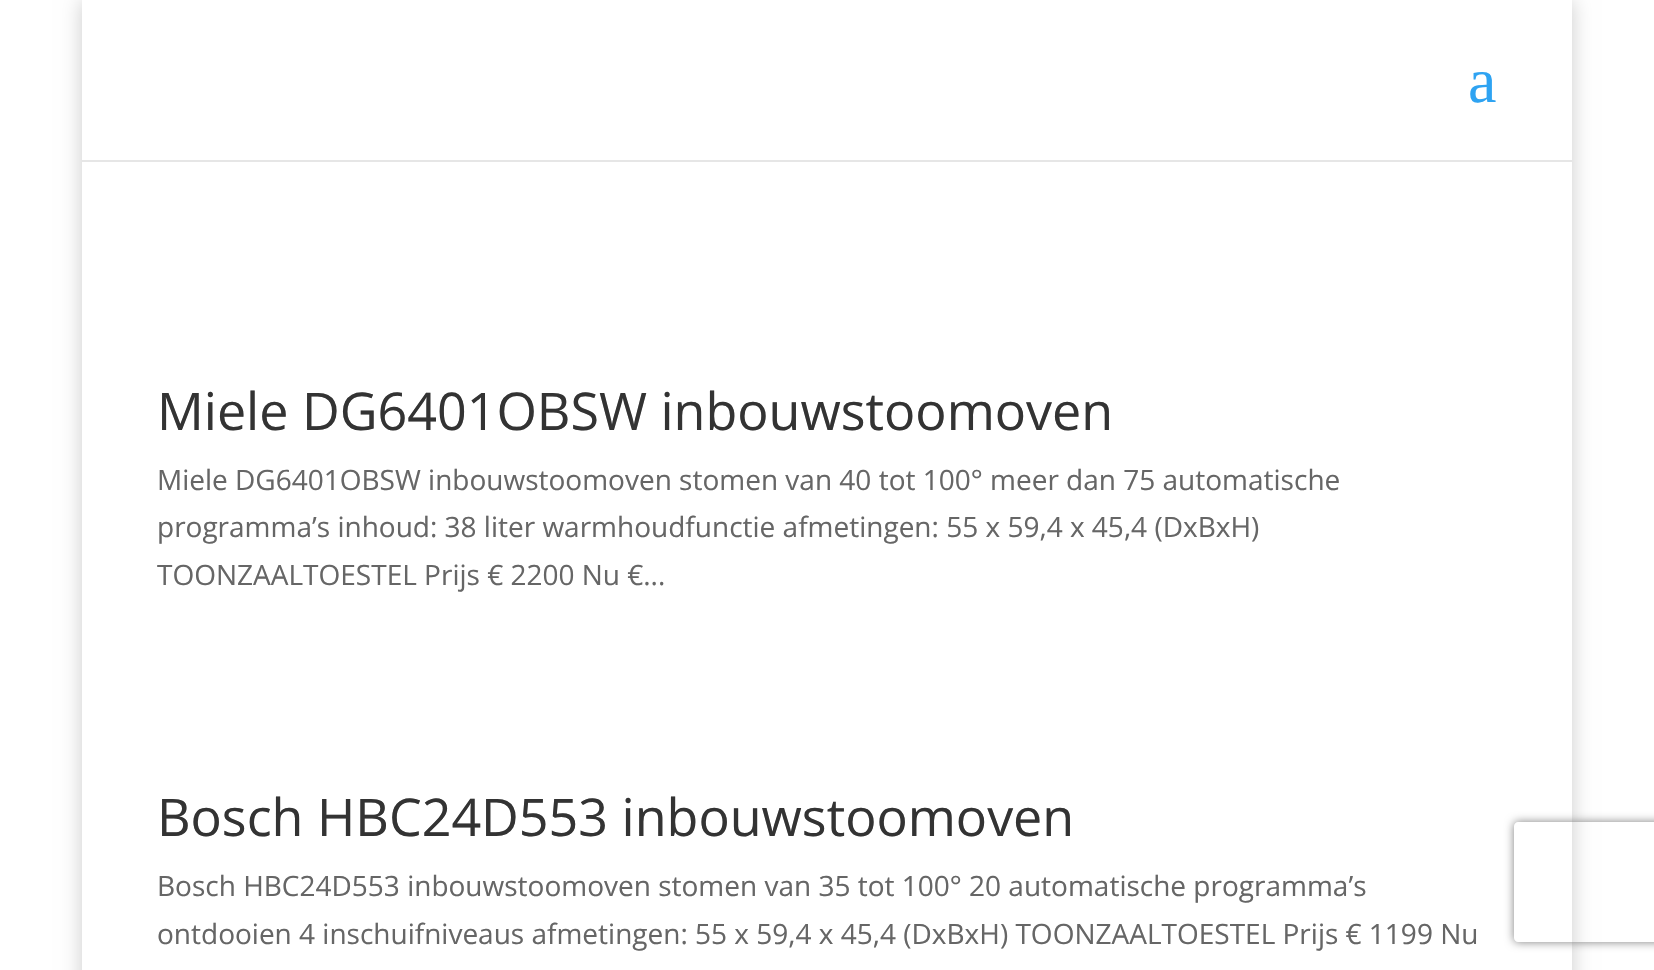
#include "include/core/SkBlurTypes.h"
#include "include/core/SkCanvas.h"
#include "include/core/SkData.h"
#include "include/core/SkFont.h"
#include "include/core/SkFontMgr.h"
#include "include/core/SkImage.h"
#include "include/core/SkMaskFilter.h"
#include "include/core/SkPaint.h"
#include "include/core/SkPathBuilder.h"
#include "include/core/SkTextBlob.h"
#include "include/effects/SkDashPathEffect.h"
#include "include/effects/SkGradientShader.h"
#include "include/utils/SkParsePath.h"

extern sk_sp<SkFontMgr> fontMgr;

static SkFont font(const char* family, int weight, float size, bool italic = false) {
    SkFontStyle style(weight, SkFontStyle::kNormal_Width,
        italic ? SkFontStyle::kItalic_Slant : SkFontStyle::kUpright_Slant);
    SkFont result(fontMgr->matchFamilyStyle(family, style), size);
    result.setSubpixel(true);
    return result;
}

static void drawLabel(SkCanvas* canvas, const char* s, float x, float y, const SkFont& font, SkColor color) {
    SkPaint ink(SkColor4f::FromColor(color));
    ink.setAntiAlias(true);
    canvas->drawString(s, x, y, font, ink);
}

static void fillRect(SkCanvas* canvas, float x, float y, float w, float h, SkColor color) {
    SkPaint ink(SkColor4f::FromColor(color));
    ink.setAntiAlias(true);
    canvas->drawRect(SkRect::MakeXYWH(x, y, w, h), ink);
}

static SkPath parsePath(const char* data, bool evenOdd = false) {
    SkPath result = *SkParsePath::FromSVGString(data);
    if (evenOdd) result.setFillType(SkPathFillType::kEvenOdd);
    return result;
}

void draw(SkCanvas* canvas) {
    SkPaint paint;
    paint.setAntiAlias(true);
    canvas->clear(0xFFFFFFFF);
    canvas->save();
    canvas->clipPath(parsePath("M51 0H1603V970H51ZM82 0H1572V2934H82Z", true), true);
    paint.setColor(0x33000000);
    paint.setMaskFilter(SkMaskFilter::MakeBlur(kNormal_SkBlurStyle, 10));
    canvas->drawRect(SkRect::MakeXYWH(82, 0, 1490, 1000), paint);
    paint.setMaskFilter(nullptr);
    canvas->restore();
    fillRect(canvas, 82, 160, 1490, 2, 0xFFE6E6E6);
    SkFont font1 = font("Liberation Serif", 400, 64);
    drawLabel(canvas, "a", 1468, 102, font1, 0xFF2EA3F2);
    SkFont font2 = font("Open Sans", 400, 52);
    drawLabel(canvas, "Miele DG6401OBSW inbouwstoomoven", 157, 430, font2, 0xFF333333);
    SkFont font3 = font("Open Sans", 400, 28);
    drawLabel(canvas, "Miele DG6401OBSW inbouwstoomoven stomen van 40 tot 100° meer dan 75 automatische", 157, 490, font3, 0xFF666666);
    drawLabel(canvas, "programma’s inhoud: 38 liter warmhoudfunctie afmetingen: 55 x 59,4 x 45,4 (DxBxH)", 157, 537, font3, 0xFF666666);
    drawLabel(canvas, "TOONZAALTOESTEL Prijs € 2200 Nu €...", 157, 585, font3, 0xFF666666);
    drawLabel(canvas, "Bosch HBC24D553 inbouwstoomoven", 157, 836, font2, 0xFF333333);
    drawLabel(canvas, "Bosch HBC24D553 inbouwstoomoven stomen van 35 tot 100° 20 automatische programma’s", 157, 896, font3, 0xFF666666);
    drawLabel(canvas, "ontdooien 4 inschuifniveaus afmetingen: 55 x 59,4 x 45,4 (DxBxH) TOONZAALTOESTEL Prijs € 1199 Nu", 157, 944, font3, 0xFF666666);
    canvas->save();
    canvas->clipPath(parsePath("M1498 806H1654V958H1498ZM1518 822H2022C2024 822 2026 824 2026 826V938C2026 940 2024 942 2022 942H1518C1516 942 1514 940 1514 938V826C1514 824 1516 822 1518 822Z", true), true);
    paint.setColor(0xFF808080);
    paint.setMaskFilter(SkMaskFilter::MakeBlur(kNormal_SkBlurStyle, 5));
    canvas->drawRoundRect(SkRect::MakeXYWH(1514, 822, 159, 120), 4, 4, paint);
    paint.setMaskFilter(nullptr);
    canvas->restore();
}
